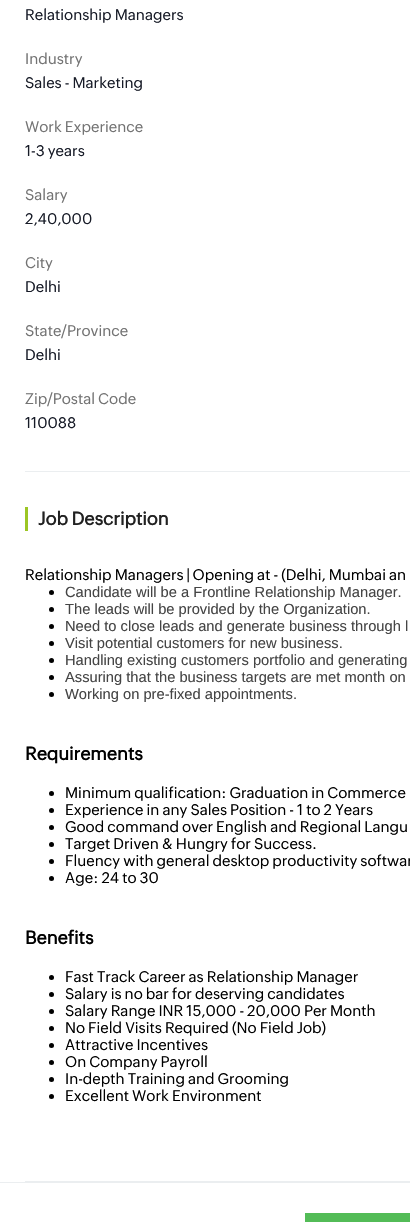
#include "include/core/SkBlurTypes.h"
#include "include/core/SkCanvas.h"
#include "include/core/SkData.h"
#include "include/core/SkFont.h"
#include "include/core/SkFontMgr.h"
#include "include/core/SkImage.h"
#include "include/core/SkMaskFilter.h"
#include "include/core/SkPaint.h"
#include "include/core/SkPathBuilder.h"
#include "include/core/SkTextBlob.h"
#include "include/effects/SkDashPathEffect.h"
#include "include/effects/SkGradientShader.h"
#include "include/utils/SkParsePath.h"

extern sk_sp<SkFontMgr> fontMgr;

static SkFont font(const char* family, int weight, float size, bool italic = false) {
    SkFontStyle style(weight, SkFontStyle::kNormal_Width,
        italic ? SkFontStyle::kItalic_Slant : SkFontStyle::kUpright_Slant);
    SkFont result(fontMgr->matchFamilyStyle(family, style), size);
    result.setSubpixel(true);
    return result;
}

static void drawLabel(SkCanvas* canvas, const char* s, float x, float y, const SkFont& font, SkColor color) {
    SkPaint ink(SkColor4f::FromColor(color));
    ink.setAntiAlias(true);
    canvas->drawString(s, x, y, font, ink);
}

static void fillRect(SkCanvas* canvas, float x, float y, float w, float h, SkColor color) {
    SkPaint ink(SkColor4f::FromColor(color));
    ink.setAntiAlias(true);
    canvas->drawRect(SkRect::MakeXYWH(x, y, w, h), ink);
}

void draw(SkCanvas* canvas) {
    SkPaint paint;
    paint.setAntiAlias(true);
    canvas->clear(0xFFFFFFFF);
    SkFont font1 = font("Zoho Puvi", 400, 15);
    drawLabel(canvas, "Relationship Managers", 25, 20, font1, 0xFF171B27);
    drawLabel(canvas, "Industry", 25, 64, font1, 0xFF737373);
    drawLabel(canvas, "Sales - Marketing", 25, 88, font1, 0xFF171B27);
    drawLabel(canvas, "Work Experience", 25, 132, font1, 0xFF737373);
    drawLabel(canvas, "1-3 years", 25, 156, font1, 0xFF171B27);
    drawLabel(canvas, "Salary", 25, 200, font1, 0xFF737373);
    drawLabel(canvas, "2,40,000", 25, 224, font1, 0xFF171B27);
    drawLabel(canvas, "City", 25, 268, font1, 0xFF737373);
    drawLabel(canvas, "Delhi", 25, 292, font1, 0xFF171B27);
    drawLabel(canvas, "State/Province", 25, 336, font1, 0xFF737373);
    drawLabel(canvas, "Delhi", 25, 360, font1, 0xFF171B27);
    drawLabel(canvas, "Zip/Postal Code", 25, 404, font1, 0xFF737373);
    drawLabel(canvas, "110088", 25, 428, font1, 0xFF171B27);
    fillRect(canvas, 25, 471, 385, 1, 0xFFEBEEF0);
    fillRect(canvas, 25, 507, 3, 24, 0xFF9CC624);
    SkFont font2 = font("Zoho Puvi", 700, 18);
    drawLabel(canvas, "Job Description", 38, 525, font2, 0xFF212121);
    drawLabel(canvas, "Relationship Managers | Opening at - (Delhi, Mumbai an", 25, 580, font1, 0xFF000000);
    paint.setColor(0xFF000000);
    canvas->drawCircle(51.5f, 592.5f, 2.5f, paint);
    SkFont font3 = font("Liberation Sans", 400, 14.7f);
    drawLabel(canvas, "Candidate will be a Frontline Relationship Manager.", 65, 597, font3, 0xFF454545);
    canvas->drawCircle(51.5f, 609.5f, 2.5f, paint);
    drawLabel(canvas, "The leads will be provided by the Organization.", 65, 614, font3, 0xFF454545);
    canvas->drawCircle(51.5f, 626.5f, 2.5f, paint);
    drawLabel(canvas, "Need to close leads and generate business through l", 65, 631, font3, 0xFF454545);
    canvas->drawCircle(51.5f, 643.5f, 2.5f, paint);
    drawLabel(canvas, "Visit potential customers for new business.", 65, 648, font3, 0xFF454545);
    canvas->drawCircle(51.5f, 660.5f, 2.5f, paint);
    drawLabel(canvas, "Handling existing customers portfolio and generating", 65, 665, font3, 0xFF454545);
    canvas->drawCircle(51.5f, 677.5f, 2.5f, paint);
    drawLabel(canvas, "Assuring that the business targets are met month on", 65, 682, font3, 0xFF454545);
    canvas->drawCircle(51.5f, 694.5f, 2.5f, paint);
    drawLabel(canvas, "Working on pre-fixed appointments.", 65, 699, font3, 0xFF454545);
    drawLabel(canvas, "Requirements", 25, 760, font2, 0xFF000000);
    canvas->drawCircle(51.5f, 793.5f, 2.5f, paint);
    drawLabel(canvas, "Minimum qualification: Graduation in Commerce", 65, 798, font1, 0xFF000000);
    canvas->drawCircle(51.5f, 810.5f, 2.5f, paint);
    drawLabel(canvas, "Experience in any Sales Position - 1 to 2 Years", 65, 815, font1, 0xFF000000);
    canvas->drawCircle(51.5f, 827.5f, 2.5f, paint);
    drawLabel(canvas, "Good command over English and Regional Langu", 65, 832, font1, 0xFF000000);
    canvas->drawCircle(51.5f, 844.5f, 2.5f, paint);
    drawLabel(canvas, "Target Driven & Hungry for Success.", 65, 849, font1, 0xFF000000);
    canvas->drawCircle(51.5f, 861.5f, 2.5f, paint);
    drawLabel(canvas, "Fluency with general desktop productivity softwar", 65, 866, font1, 0xFF000000);
    canvas->drawCircle(51.5f, 878.5f, 2.5f, paint);
    drawLabel(canvas, "Age: 24 to 30", 65, 883, font1, 0xFF000000);
    drawLabel(canvas, "Benefits", 25, 944, font2, 0xFF000000);
    canvas->drawCircle(51.5f, 977.5f, 2.5f, paint);
    drawLabel(canvas, "Fast Track Career as Relationship Manager", 65, 982, font1, 0xFF000000);
    canvas->drawCircle(51.5f, 994.5f, 2.5f, paint);
    drawLabel(canvas, "Salary is no bar for deserving candidates", 65, 999, font1, 0xFF000000);
    canvas->drawCircle(51.5f, 1011.5f, 2.5f, paint);
    drawLabel(canvas, "Salary Range INR 15,000 - 20,000 Per Month", 65, 1016, font1, 0xFF000000);
    canvas->drawCircle(51.5f, 1028.5f, 2.5f, paint);
    drawLabel(canvas, "No Field Visits Required (No Field Job)", 65, 1033, font1, 0xFF000000);
    canvas->drawCircle(51.5f, 1045.5f, 2.5f, paint);
    drawLabel(canvas, "Attractive Incentives", 65, 1050, font1, 0xFF000000);
    canvas->drawCircle(51.5f, 1062.5f, 2.5f, paint);
    drawLabel(canvas, "On Company Payroll", 65, 1067, font1, 0xFF000000);
    canvas->drawCircle(51.5f, 1079.5f, 2.5f, paint);
    drawLabel(canvas, "In-depth Training and Grooming", 65, 1084, font1, 0xFF000000);
    canvas->drawCircle(51.5f, 1096.5f, 2.5f, paint);
    drawLabel(canvas, "Excellent Work Environment", 65, 1101, font1, 0xFF000000);
    fillRect(canvas, 25, 1181, 385, 1, 0xFFEBEEF0);
    fillRect(canvas, 0, 1182, 410, 1, 0xFFEBEEF0);
    fillRect(canvas, 305, 1213, 105, 9, 0xFF53BC57);
}
